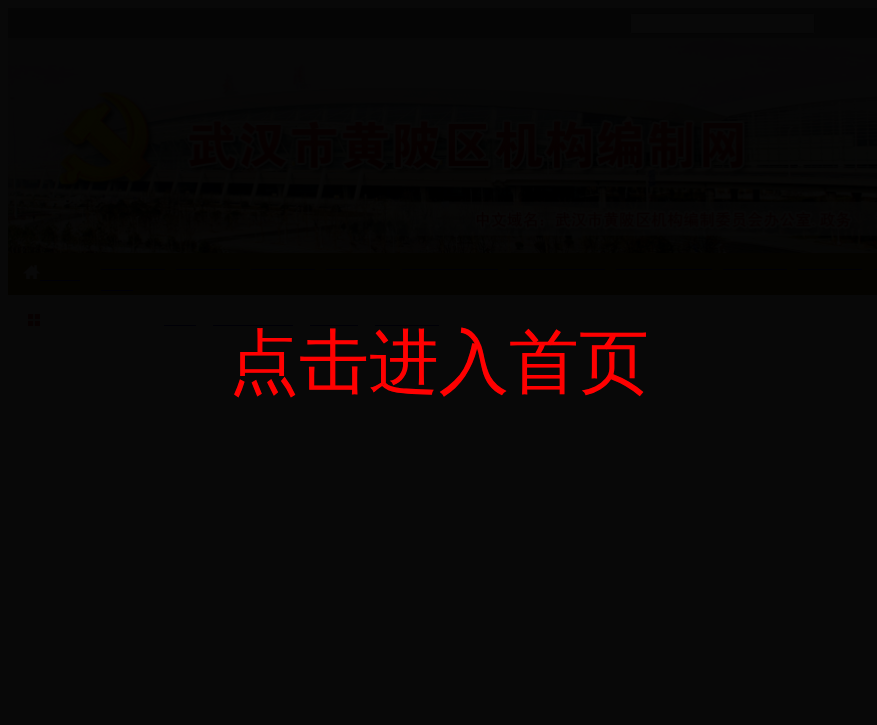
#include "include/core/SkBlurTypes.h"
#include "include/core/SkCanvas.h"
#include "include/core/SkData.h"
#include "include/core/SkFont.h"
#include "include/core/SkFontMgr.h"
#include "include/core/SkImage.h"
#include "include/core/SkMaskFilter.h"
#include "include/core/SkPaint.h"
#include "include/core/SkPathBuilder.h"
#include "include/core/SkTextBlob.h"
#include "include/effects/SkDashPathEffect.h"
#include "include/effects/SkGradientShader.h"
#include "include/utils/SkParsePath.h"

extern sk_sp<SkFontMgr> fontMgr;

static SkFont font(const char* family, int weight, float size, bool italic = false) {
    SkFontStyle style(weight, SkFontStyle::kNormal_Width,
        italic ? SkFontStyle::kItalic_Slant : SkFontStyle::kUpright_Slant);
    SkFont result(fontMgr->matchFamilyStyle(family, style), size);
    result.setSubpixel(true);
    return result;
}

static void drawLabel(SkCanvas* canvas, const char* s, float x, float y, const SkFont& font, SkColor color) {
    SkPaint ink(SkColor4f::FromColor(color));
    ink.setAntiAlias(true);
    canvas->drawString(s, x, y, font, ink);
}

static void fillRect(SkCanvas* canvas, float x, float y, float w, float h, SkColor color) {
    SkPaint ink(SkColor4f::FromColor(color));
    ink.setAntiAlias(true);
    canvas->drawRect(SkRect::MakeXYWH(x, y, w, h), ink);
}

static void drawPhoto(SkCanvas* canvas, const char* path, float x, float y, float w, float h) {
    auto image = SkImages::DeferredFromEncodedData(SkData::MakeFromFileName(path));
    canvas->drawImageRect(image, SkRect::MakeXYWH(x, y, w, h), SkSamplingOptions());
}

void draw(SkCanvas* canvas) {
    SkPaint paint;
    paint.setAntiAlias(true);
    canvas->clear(0xFF080808);
    fillRect(canvas, 8, 8, 869, 30, 0xFF050505);
    paint.setColor(0xFF080808);
    canvas->drawRoundRect(SkRect::MakeXYWH(630.5f, 13.5f, 184, 20), 1.5f, 1.5f, paint);
    paint.setStroke(true);
    paint.setStrokeWidth(1);
    paint.setColor(0xFF040404);
    canvas->drawRoundRect(SkRect::MakeXYWH(630.5f, 13.5f, 184, 20), 1.5f, 1.5f, paint);
    drawPhoto(canvas, "assets/img1.png", 8, 38, 869, 215);
    fillRect(canvas, 8, 253, 869, 42, 0xFF040300);
    drawPhoto(canvas, "assets/img2.png", 23, 265, 17, 14);
    fillRect(canvas, 40, 280, 40, 1, 0xFF000007);
    fillRect(canvas, 101, 269, 64, 1, 0xFF000007);
    fillRect(canvas, 176, 269, 64, 1, 0xFF000007);
    fillRect(canvas, 251, 269, 64, 1, 0xFF000007);
    fillRect(canvas, 326, 269, 64, 1, 0xFF000007);
    fillRect(canvas, 402, 269, 96, 1, 0xFF000007);
    fillRect(canvas, 509, 269, 96, 1, 0xFF000007);
    fillRect(canvas, 616, 269, 96, 1, 0xFF000007);
    fillRect(canvas, 723, 269, 64, 1, 0xFF000007);
    fillRect(canvas, 798, 269, 64, 1, 0xFF000007);
    fillRect(canvas, 874, 269, 3, 1, 0xFF000007);
    fillRect(canvas, 101, 290, 32, 1, 0xFF000007);
    drawPhoto(canvas, "assets/img3.png", 28, 314, 12, 12);
    fillRect(canvas, 164, 325, 32, 1, 0xFF000007);
    fillRect(canvas, 213, 325, 80, 1, 0xFF000007);
    fillRect(canvas, 310, 325, 48, 1, 0xFF000007);
    fillRect(canvas, 375, 325, 64, 1, 0xFF000007);
    SkFont font1 = font("WenQuanYi Zen Hei", 500, 70);
    drawLabel(canvas, "点击进入首页", 229, 386, font1, 0xFFFF0000);
}
